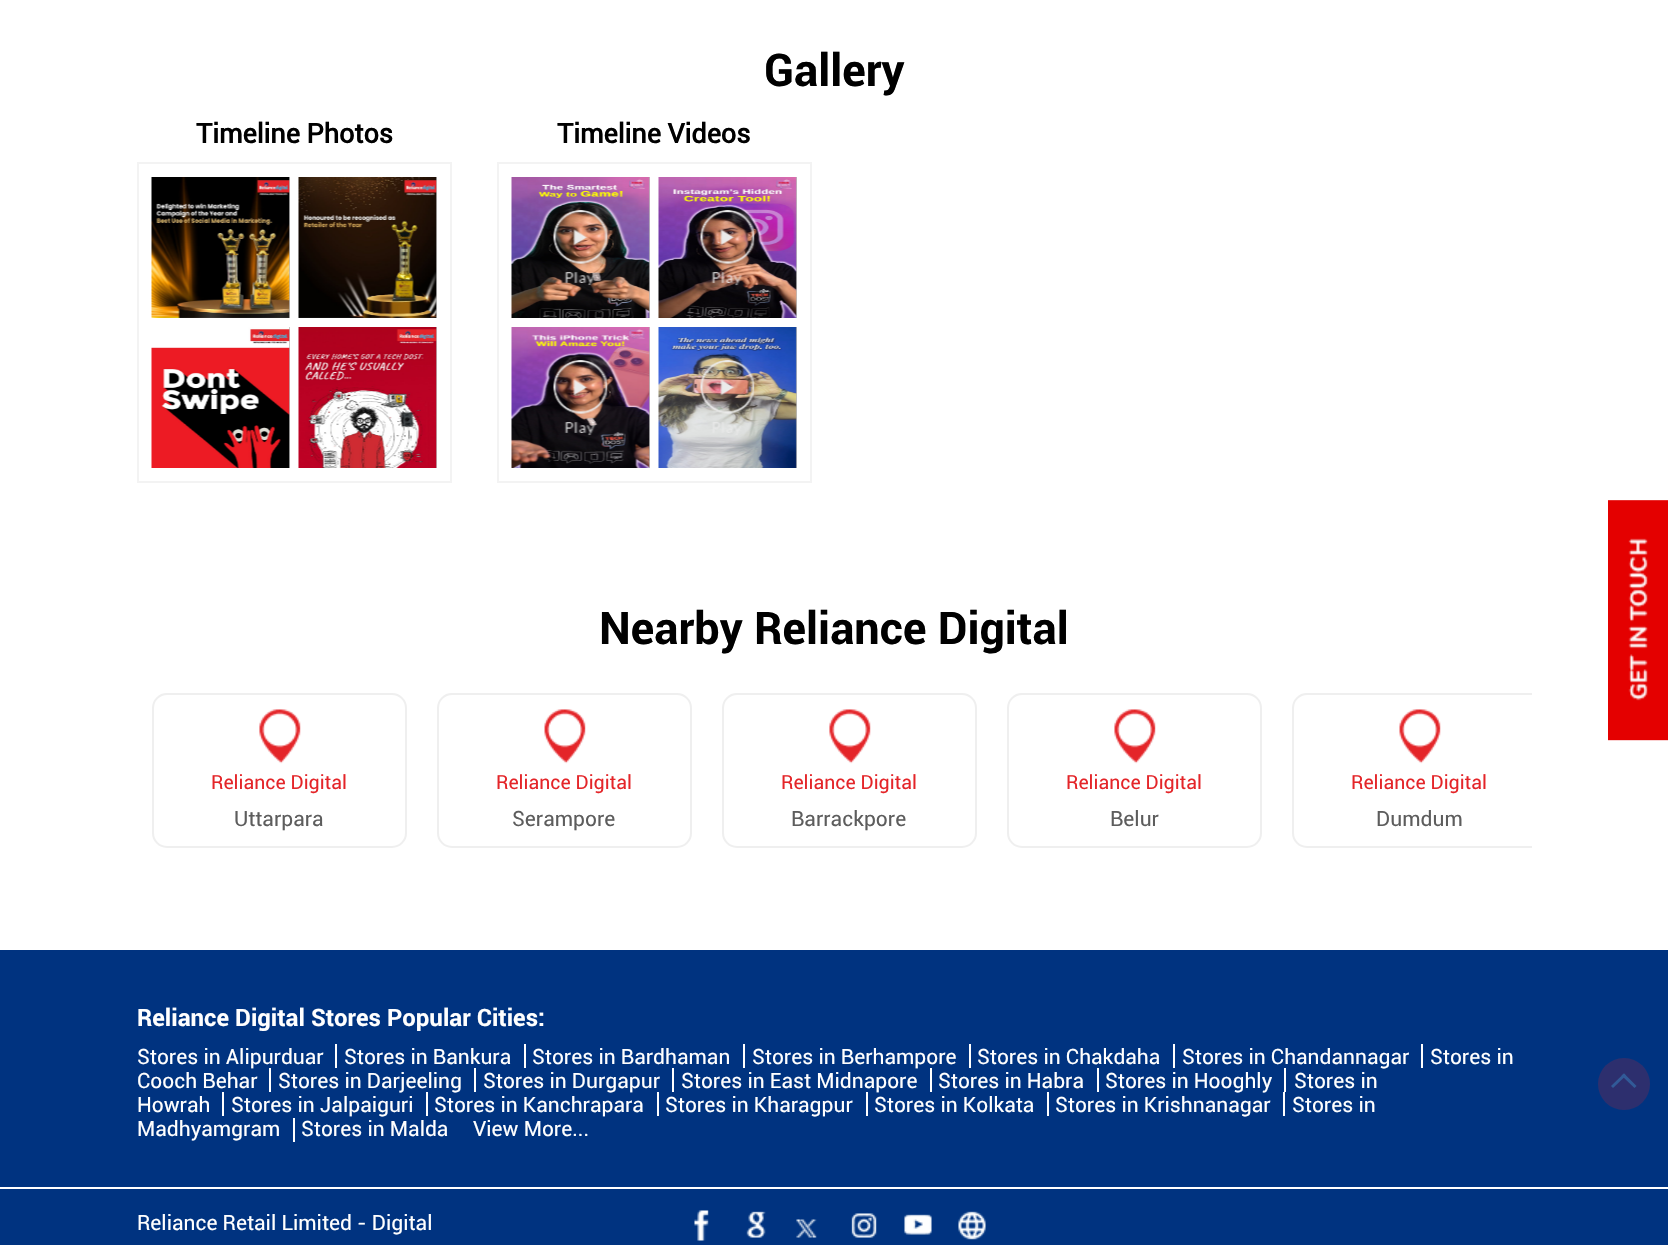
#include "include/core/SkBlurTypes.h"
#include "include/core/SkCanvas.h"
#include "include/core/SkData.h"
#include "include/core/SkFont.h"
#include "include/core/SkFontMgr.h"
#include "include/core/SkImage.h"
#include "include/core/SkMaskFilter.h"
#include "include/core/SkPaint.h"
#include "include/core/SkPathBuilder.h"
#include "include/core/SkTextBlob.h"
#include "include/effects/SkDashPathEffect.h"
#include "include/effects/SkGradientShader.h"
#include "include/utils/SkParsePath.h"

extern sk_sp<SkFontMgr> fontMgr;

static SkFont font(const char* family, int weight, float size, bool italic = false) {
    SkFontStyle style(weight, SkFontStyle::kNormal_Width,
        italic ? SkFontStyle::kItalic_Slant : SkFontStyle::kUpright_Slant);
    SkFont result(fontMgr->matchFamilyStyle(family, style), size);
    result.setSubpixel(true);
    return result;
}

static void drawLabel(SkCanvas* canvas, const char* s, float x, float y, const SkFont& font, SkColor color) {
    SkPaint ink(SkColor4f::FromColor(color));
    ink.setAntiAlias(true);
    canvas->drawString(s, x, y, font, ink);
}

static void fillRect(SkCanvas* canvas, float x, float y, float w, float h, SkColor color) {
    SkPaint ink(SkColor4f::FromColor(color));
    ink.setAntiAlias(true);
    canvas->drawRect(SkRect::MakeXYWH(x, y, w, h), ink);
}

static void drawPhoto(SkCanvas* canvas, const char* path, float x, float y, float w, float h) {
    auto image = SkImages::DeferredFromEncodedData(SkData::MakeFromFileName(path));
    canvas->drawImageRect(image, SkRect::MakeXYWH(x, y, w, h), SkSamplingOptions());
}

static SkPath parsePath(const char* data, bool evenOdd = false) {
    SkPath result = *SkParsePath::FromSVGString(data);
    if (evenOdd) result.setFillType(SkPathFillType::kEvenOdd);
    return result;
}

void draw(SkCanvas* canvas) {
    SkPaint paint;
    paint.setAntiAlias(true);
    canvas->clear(0xFFFFFFFF);
    SkFont font1 = font("Roboto", 700, 45);
    drawLabel(canvas, "Gallery", 764, 86, font1, 0xFF000000);
    SkFont font2 = font("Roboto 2", 700, 27);
    drawLabel(canvas, "Timeline Photos", 196, 143, font2, 0xFF000000);
    paint.setStroke(true);
    paint.setStrokeWidth(2);
    paint.setColor(0xFFF3F3F3);
    canvas->drawRect(SkRect::MakeXYWH(138, 163, 313, 319), paint);
    fillRect(canvas, 152, 177, 138, 141, 0xFFBBBBBB);
    drawPhoto(canvas, "assets/img1.png", 151, 177, 139, 141);
    fillRect(canvas, 299, 177, 138, 141, 0xFFBBBBBB);
    drawPhoto(canvas, "assets/img2.png", 298, 177, 139, 141);
    fillRect(canvas, 289, 327, 1, 141, 0xFFBBBBBB);
    drawPhoto(canvas, "assets/img3.png", 151, 327, 139, 141);
    fillRect(canvas, 436, 327, 1, 141, 0xFFBBBBBB);
    drawPhoto(canvas, "assets/img4.png", 298, 327, 139, 141);
    drawLabel(canvas, "Timeline Videos", 557, 143, font2, 0xFF000000);
    canvas->drawRect(SkRect::MakeXYWH(498, 163, 313, 319), paint);
    fillRect(canvas, 648, 177, 2, 141, 0xFFBBBBBB);
    drawPhoto(canvas, "assets/img5.png", 511, 177, 139, 141);
    drawPhoto(canvas, "assets/img6.png", 553, 210, 55, 76);
    fillRect(canvas, 795, 177, 2, 141, 0xFFBBBBBB);
    drawPhoto(canvas, "assets/img7.png", 658, 177, 139, 141);
    drawPhoto(canvas, "assets/img8.png", 700, 210, 55, 76);
    fillRect(canvas, 649, 327, 1, 141, 0xFFBBBBBB);
    drawPhoto(canvas, "assets/img9.png", 511, 327, 139, 141);
    drawPhoto(canvas, "assets/img10.png", 553, 360, 55, 76);
    fillRect(canvas, 795, 327, 2, 141, 0xFFBBBBBB);
    drawPhoto(canvas, "assets/img11.png", 658, 327, 139, 141);
    drawPhoto(canvas, "assets/img12.png", 700, 360, 55, 75);
    drawLabel(canvas, "Nearby Reliance Digital", 599, 644, font1, 0xFF000000);
    paint.setColor(0xFFEFEFEF);
    canvas->drawRoundRect(SkRect::MakeXYWH(153, 694, 253, 153), 14, 14, paint);
    drawPhoto(canvas, "assets/img13.png", 259, 709, 42, 55);
    SkFont font3 = font("Roboto", 400, 19.5f);
    drawLabel(canvas, "Reliance Digital", 211, 789, font3, 0xFFE42529);
    SkFont font4 = font("Roboto", 400, 21);
    drawLabel(canvas, "Uttarpara", 234, 826, font4, 0xFF5D5D5D);
    canvas->drawRoundRect(SkRect::MakeXYWH(438, 694, 253, 153), 14, 14, paint);
    drawPhoto(canvas, "assets/img14.png", 544, 709, 42, 55);
    drawLabel(canvas, "Reliance Digital", 496, 789, font3, 0xFFE42529);
    drawLabel(canvas, "Serampore", 512, 826, font4, 0xFF5D5D5D);
    canvas->drawRoundRect(SkRect::MakeXYWH(723, 694, 253, 153), 14, 14, paint);
    drawPhoto(canvas, "assets/img13.png", 829, 709, 42, 55);
    drawLabel(canvas, "Reliance Digital", 781, 789, font3, 0xFFE42529);
    drawLabel(canvas, "Barrackpore", 791, 826, font4, 0xFF5D5D5D);
    canvas->drawRoundRect(SkRect::MakeXYWH(1008, 694, 253, 153), 14, 14, paint);
    drawPhoto(canvas, "assets/img13.png", 1114, 709, 42, 55);
    drawLabel(canvas, "Reliance Digital", 1066, 789, font3, 0xFFE42529);
    drawLabel(canvas, "Belur", 1110, 826, font4, 0xFF5D5D5D);
    canvas->save();
    canvas->clipRect(SkRect::MakeXYWH(137, 678, 1395, 227));
    canvas->drawRoundRect(SkRect::MakeXYWH(1293, 694, 253, 153), 14, 14, paint);
    canvas->restore();
    drawPhoto(canvas, "assets/img15.png", 1399, 709, 42, 55);
    drawLabel(canvas, "Reliance Digital", 1351, 789, font3, 0xFFE42529);
    drawLabel(canvas, "Dumdum", 1376, 826, font4, 0xFF5D5D5D);
    drawPhoto(canvas, "assets/img16.png", 1608, 500, 60, 241);
    fillRect(canvas, 0, 950, 1668, 295, 0xFF003380);
    fillRect(canvas, 0, 1187, 1668, 2, 0xFFFFFFFF);
    SkFont font5 = font("Roboto", 700, 24);
    drawLabel(canvas, "Reliance Digital Stores Popular Cities:", 137, 1026, font5, 0xFFFFFFFF);
    drawLabel(canvas, "Stores in Alipurduar", 137, 1064, font4, 0xFFFFFFFF);
    fillRect(canvas, 335, 1044, 2, 24, 0xFFFFFFFF);
    drawLabel(canvas, "Stores in Bankura", 344, 1064, font4, 0xFFFFFFFF);
    fillRect(canvas, 524, 1044, 2, 24, 0xFFFFFFFF);
    drawLabel(canvas, "Stores in Bardhaman", 532, 1064, font4, 0xFFFFFFFF);
    fillRect(canvas, 743, 1044, 2, 24, 0xFFFFFFFF);
    drawLabel(canvas, "Stores in Berhampore", 752, 1064, font4, 0xFFFFFFFF);
    fillRect(canvas, 969, 1044, 2, 24, 0xFFFFFFFF);
    drawLabel(canvas, "Stores in Chakdaha", 977, 1064, font4, 0xFFFFFFFF);
    fillRect(canvas, 1173, 1044, 2, 24, 0xFFFFFFFF);
    drawLabel(canvas, "Stores in Chandannagar", 1182, 1064, font4, 0xFFFFFFFF);
    fillRect(canvas, 1421, 1044, 2, 24, 0xFFFFFFFF);
    drawLabel(canvas, "Stores in", 1430, 1064, font4, 0xFFFFFFFF);
    drawLabel(canvas, "Cooch Behar", 137, 1088, font4, 0xFFFFFFFF);
    fillRect(canvas, 269, 1068, 2, 24, 0xFFFFFFFF);
    drawLabel(canvas, "Stores in Darjeeling", 278, 1088, font4, 0xFFFFFFFF);
    fillRect(canvas, 474, 1068, 2, 24, 0xFFFFFFFF);
    drawLabel(canvas, "Stores in Durgapur", 483, 1088, font4, 0xFFFFFFFF);
    fillRect(canvas, 672, 1068, 2, 24, 0xFFFFFFFF);
    drawLabel(canvas, "Stores in East Midnapore", 681, 1088, font4, 0xFFFFFFFF);
    fillRect(canvas, 930, 1068, 2, 24, 0xFFFFFFFF);
    drawLabel(canvas, "Stores in Habra", 938, 1088, font4, 0xFFFFFFFF);
    fillRect(canvas, 1097, 1068, 2, 24, 0xFFFFFFFF);
    drawLabel(canvas, "Stores in Hooghly", 1105, 1088, font4, 0xFFFFFFFF);
    fillRect(canvas, 1284, 1068, 2, 24, 0xFFFFFFFF);
    drawLabel(canvas, "Stores in", 1294, 1088, font4, 0xFFFFFFFF);
    drawLabel(canvas, "Howrah", 137, 1112, font4, 0xFFFFFFFF);
    fillRect(canvas, 222, 1092, 2, 24, 0xFFFFFFFF);
    drawLabel(canvas, "Stores in Jalpaiguri", 231, 1112, font4, 0xFFFFFFFF);
    fillRect(canvas, 426, 1092, 2, 24, 0xFFFFFFFF);
    drawLabel(canvas, "Stores in Kanchrapara", 434, 1112, font4, 0xFFFFFFFF);
    fillRect(canvas, 657, 1092, 2, 24, 0xFFFFFFFF);
    drawLabel(canvas, "Stores in Kharagpur", 665, 1112, font4, 0xFFFFFFFF);
    fillRect(canvas, 866, 1092, 2, 24, 0xFFFFFFFF);
    drawLabel(canvas, "Stores in Kolkata", 874, 1112, font4, 0xFFFFFFFF);
    fillRect(canvas, 1047, 1092, 2, 24, 0xFFFFFFFF);
    drawLabel(canvas, "Stores in Krishnanagar", 1055, 1112, font4, 0xFFFFFFFF);
    fillRect(canvas, 1283, 1092, 2, 24, 0xFFFFFFFF);
    drawLabel(canvas, "Stores in", 1292, 1112, font4, 0xFFFFFFFF);
    drawLabel(canvas, "Madhyamgram", 137, 1136, font4, 0xFFFFFFFF);
    fillRect(canvas, 293, 1118, 2, 24, 0xFFFFFFFF);
    drawLabel(canvas, "Stores in Malda", 301, 1136, font4, 0xFFFFFFFF);
    drawLabel(canvas, "View More...", 473, 1136, font4, 0xFFFFFFFF);
    drawLabel(canvas, "Reliance Retail Limited - Digital", 137, 1230, font4, 0xFFFFFFFF);
    drawPhoto(canvas, "assets/img17.png", 694, 1210, 15, 31);
    drawPhoto(canvas, "assets/img18.png", 746, 1211, 20, 27);
    drawPhoto(canvas, "assets/img19.png", 796, 1219, 21, 19);
    drawPhoto(canvas, "assets/img20.png", 851, 1213, 26, 25);
    drawPhoto(canvas, "assets/img21.png", 904, 1214, 28, 21);
    drawPhoto(canvas, "assets/img22.png", 958, 1211, 28, 29);
    paint.setStroke(false);
    paint.setColor(0xFF2D2F6E);
    canvas->drawCircle(1624, 1084, 26, paint);
    paint.setColor(0xFF315A98);
    canvas->drawPath(parsePath("M1613 1088L1611 1086L1624 1073.5L1626 1075.5Z"), paint);
    canvas->drawPath(parsePath("M1634.5 1088L1621.5 1075.5L1624 1073.5L1636.5 1086Z"), paint);
}
